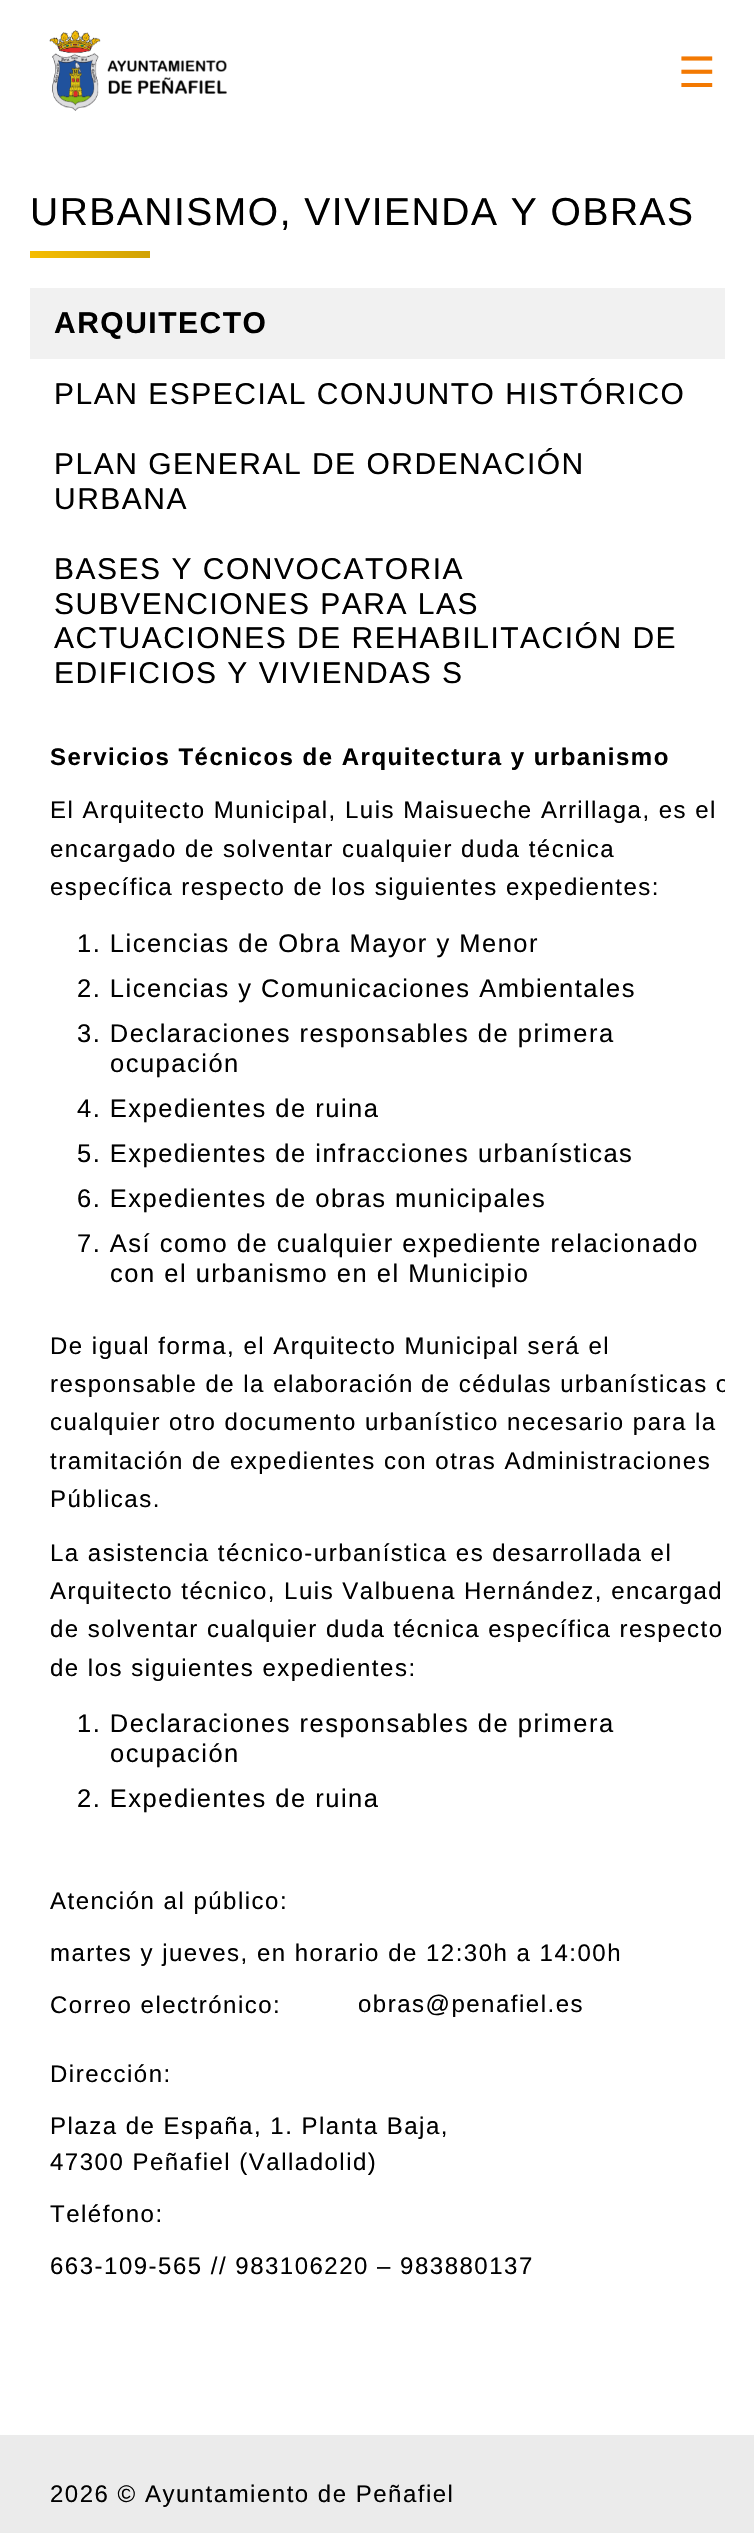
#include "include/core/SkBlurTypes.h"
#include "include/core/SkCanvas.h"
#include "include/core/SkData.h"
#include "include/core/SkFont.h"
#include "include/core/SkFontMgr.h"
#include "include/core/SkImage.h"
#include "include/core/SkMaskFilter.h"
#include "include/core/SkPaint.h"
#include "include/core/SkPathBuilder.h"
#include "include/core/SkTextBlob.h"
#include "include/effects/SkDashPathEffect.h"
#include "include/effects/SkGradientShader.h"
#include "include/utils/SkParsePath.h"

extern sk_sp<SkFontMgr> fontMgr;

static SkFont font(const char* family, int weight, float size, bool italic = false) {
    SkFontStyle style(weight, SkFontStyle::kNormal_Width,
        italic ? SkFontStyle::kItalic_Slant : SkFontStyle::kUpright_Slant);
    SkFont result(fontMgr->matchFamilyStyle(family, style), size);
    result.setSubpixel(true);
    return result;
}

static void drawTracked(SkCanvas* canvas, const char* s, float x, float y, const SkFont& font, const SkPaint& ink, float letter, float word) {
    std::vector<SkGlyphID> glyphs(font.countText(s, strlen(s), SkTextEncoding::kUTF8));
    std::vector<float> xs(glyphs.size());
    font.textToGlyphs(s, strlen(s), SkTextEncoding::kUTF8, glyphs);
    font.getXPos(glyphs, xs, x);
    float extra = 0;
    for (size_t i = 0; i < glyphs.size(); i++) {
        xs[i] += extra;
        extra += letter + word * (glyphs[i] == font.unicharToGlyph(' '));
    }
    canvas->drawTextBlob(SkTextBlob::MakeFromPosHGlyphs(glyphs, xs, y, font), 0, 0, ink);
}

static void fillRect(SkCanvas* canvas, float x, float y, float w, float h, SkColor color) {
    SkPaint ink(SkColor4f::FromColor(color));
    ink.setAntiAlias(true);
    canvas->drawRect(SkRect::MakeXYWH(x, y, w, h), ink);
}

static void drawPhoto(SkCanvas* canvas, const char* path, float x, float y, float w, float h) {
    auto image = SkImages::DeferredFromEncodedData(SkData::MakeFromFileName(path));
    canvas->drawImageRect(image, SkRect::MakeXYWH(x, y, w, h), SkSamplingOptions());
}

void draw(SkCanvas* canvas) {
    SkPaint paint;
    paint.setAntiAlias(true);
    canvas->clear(0xFFFFFFFF);
    drawPhoto(canvas, "assets/img1.png", 49, 30, 178, 81);
    SkFont font1 = font("DejaVu Sans", 400, 42);
    paint.setColor(0xFFF37902);
    drawTracked(canvas, "☰", 678, 87, font1, paint, 1.5f, 0);
    SkFont font2 = font("Liberation Sans", 400, 39);
    paint.setColor(0xFF000000);
    drawTracked(canvas, "URBANISMO, VIVIENDA Y OBRAS", 30, 225, font2, paint, 1.5f, 0);
    {
        const SkColor colors[] = {0xFFF7BE02, 0xFFCFA105};
        const float stops[] = {0, 1};
        const SkPoint ends[] = {{58, 286}, {122, 222}};
        paint.setShader(SkGradientShader::MakeLinear(ends, colors, stops, 2, SkTileMode::kClamp));
        paint.setAlpha(255);
    }
    canvas->drawRect(SkRect::MakeXYWH(30, 251, 120, 7), paint);
    fillRect(canvas, 30, 288, 695, 71, 0xFFF1F1F1);
    SkFont font3 = font("Liberation Sans", 700, 30);
    paint.setShader(nullptr);
    paint.setColor(0xFF000000);
    drawTracked(canvas, "ARQUITECTO", 54, 333, font3, paint, 1.5f, 0);
    SkFont font4 = font("Liberation Sans", 400, 30);
    drawTracked(canvas, "PLAN ESPECIAL CONJUNTO HISTÓRICO", 54, 404, font4, paint, 1.5f, 0);
    drawTracked(canvas, "PLAN GENERAL DE ORDENACIÓN", 54, 474, font4, paint, 1.5f, 0);
    drawTracked(canvas, "URBANA", 54, 509, font4, paint, 1.5f, 0);
    drawTracked(canvas, "BASES Y CONVOCATORIA", 54, 579, font4, paint, 1.5f, 0);
    drawTracked(canvas, "SUBVENCIONES PARA LAS", 54, 614, font4, paint, 1.5f, 0);
    drawTracked(canvas, "ACTUACIONES DE REHABILITACIÓN DE", 54, 648, font4, paint, 1.5f, 0);
    drawTracked(canvas, "EDIFICIOS Y VIVIENDAS S", 54, 683, font4, paint, 1.5f, 0);
    SkFont font5 = font("Liberation Sans", 700, 24);
    drawTracked(canvas, "Servicios Técnicos de Arquitectura y urbanismo", 50, 765, font5, paint, 1.5f, 0);
    SkFont font6 = font("Liberation Sans", 400, 24);
    drawTracked(canvas, "El Arquitecto Municipal, Luis Maisueche Arrillaga, es el", 50, 818, font6, paint, 1.5f, 0);
    drawTracked(canvas, "encargado de solventar cualquier duda técnica", 50, 857, font6, paint, 1.5f, 0);
    drawTracked(canvas, "específica respecto de los siguientes expedientes:", 50, 895, font6, paint, 1.5f, 0);
    SkFont font7 = font("Liberation Sans", 400, 25.5f);
    drawTracked(canvas, "1. Licencias de Obra Mayor y Menor", 77, 952, font7, paint, 1.5f, 0);
    drawTracked(canvas, "2. Licencias y Comunicaciones Ambientales", 77, 997, font7, paint, 1.5f, 0);
    drawTracked(canvas, "3. Declaraciones responsables de primera", 77, 1042, font7, paint, 1.5f, 0);
    drawTracked(canvas, "ocupación", 110, 1072, font7, paint, 1.5f, 0);
    drawTracked(canvas, "4. Expedientes de ruina", 77, 1117, font7, paint, 1.5f, 0);
    drawTracked(canvas, "5. Expedientes de infracciones urbanísticas", 77, 1162, font7, paint, 1.5f, 0);
    drawTracked(canvas, "6. Expedientes de obras municipales", 77, 1207, font7, paint, 1.5f, 0);
    drawTracked(canvas, "7. Así como de cualquier expediente relacionado", 77, 1252, font7, paint, 1.5f, 0);
    drawTracked(canvas, "con el urbanismo en el Municipio", 110, 1282, font7, paint, 1.5f, 0);
    drawTracked(canvas, "De igual forma, el Arquitecto Municipal será el", 50, 1354, font6, paint, 1.5f, 0);
    drawTracked(canvas, "responsable de la elaboración", 50, 1392, font6, paint, 1.5f, 0);
    canvas->save();
    canvas->clipRect(SkRect::MakeXYWH(30, 738, 695, 1697));
    drawTracked(canvas, "de cédulas urbanísticas o", 421, 1392, font6, paint, 1.5f, 0);
    canvas->restore();
    drawTracked(canvas, "cualquier otro documento urbanístico necesario para la", 50, 1430, font6, paint, 1.5f, 0);
    drawTracked(canvas, "tramitación de expedientes con otras Administraciones", 50, 1469, font6, paint, 1.5f, 0);
    drawTracked(canvas, "Públicas.", 50, 1507, font6, paint, 1.5f, 0);
    drawTracked(canvas, "La asistencia técnico-urbanística es desarrollada el", 50, 1561, font6, paint, 1.5f, 0);
    drawTracked(canvas, "Arquitecto técnico, Luis Valbuena Hernández, encargad", 50, 1599, font6, paint, 1.5f, 0);
    drawTracked(canvas, "de solventar cualquier duda técnica específica respecto", 50, 1637, font6, paint, 1.5f, 0);
    drawTracked(canvas, "de los siguientes expedientes:", 50, 1676, font6, paint, 1.5f, 0);
    drawTracked(canvas, "1. Declaraciones responsables de primera", 77, 1732, font7, paint, 1.5f, 0);
    drawTracked(canvas, "ocupación", 110, 1762, font7, paint, 1.5f, 0);
    drawTracked(canvas, "2. Expedientes de ruina", 77, 1807, font7, paint, 1.5f, 0);
    drawTracked(canvas, "Atención al público:", 50, 1909, font6, paint, 1.5f, 0);
    drawTracked(canvas, "martes y jueves, en horario de 12:30h a 14:00h", 50, 1961, font6, paint, 1.5f, 0);
    drawTracked(canvas, "Correo electrónico:", 50, 2013, font6, paint, 1.5f, 0);
    drawTracked(canvas, "obras@penafiel.es", 358, 2012, font6, paint, 1.5f, 0);
    drawTracked(canvas, "Dirección:", 50, 2082, font6, paint, 1.5f, 0);
    drawTracked(canvas, "Plaza de España, 1. Planta Baja,", 50, 2134, font6, paint, 1.5f, 0);
    drawTracked(canvas, "47300 Peñafiel (Valladolid)", 50, 2170, font6, paint, 1.5f, 0);
    drawTracked(canvas, "Teléfono:", 50, 2222, font6, paint, 1.5f, 0);
    drawTracked(canvas, "663-109-565 // 983106220 – 983880137", 50, 2274, font6, paint, 1.5f, 0);
    fillRect(canvas, 0, 2435, 754, 98, 0xFFEBEBEB);
    drawTracked(canvas, "2026 © Ayuntamiento de Peñafiel", 50, 2502, font6, paint, 1.5f, 0);
}
